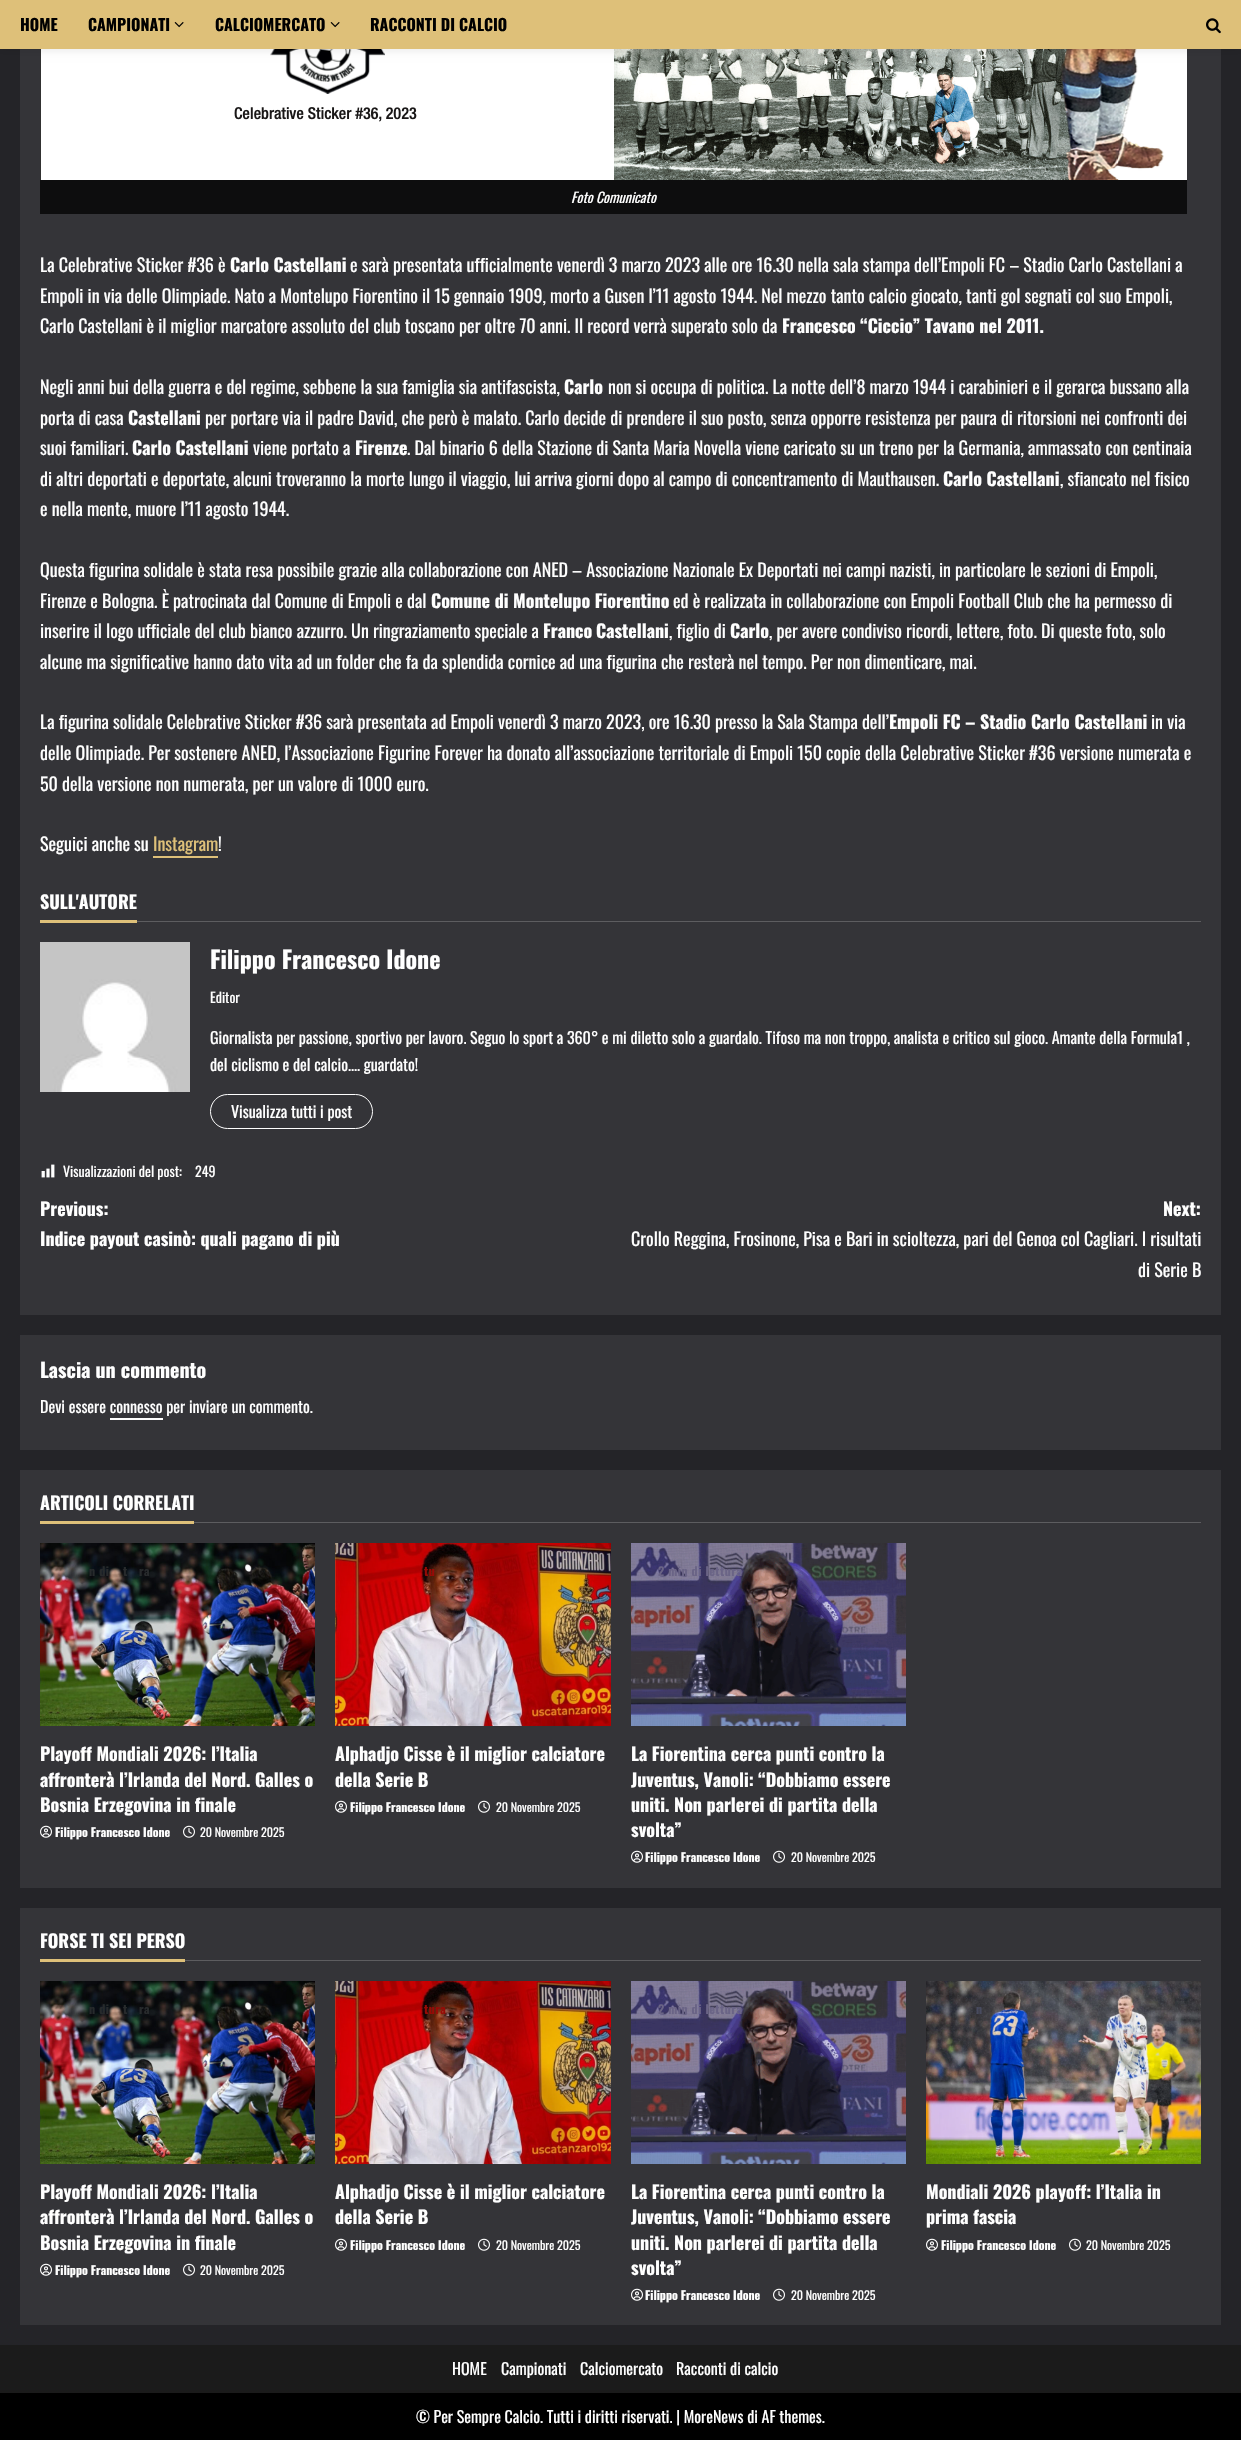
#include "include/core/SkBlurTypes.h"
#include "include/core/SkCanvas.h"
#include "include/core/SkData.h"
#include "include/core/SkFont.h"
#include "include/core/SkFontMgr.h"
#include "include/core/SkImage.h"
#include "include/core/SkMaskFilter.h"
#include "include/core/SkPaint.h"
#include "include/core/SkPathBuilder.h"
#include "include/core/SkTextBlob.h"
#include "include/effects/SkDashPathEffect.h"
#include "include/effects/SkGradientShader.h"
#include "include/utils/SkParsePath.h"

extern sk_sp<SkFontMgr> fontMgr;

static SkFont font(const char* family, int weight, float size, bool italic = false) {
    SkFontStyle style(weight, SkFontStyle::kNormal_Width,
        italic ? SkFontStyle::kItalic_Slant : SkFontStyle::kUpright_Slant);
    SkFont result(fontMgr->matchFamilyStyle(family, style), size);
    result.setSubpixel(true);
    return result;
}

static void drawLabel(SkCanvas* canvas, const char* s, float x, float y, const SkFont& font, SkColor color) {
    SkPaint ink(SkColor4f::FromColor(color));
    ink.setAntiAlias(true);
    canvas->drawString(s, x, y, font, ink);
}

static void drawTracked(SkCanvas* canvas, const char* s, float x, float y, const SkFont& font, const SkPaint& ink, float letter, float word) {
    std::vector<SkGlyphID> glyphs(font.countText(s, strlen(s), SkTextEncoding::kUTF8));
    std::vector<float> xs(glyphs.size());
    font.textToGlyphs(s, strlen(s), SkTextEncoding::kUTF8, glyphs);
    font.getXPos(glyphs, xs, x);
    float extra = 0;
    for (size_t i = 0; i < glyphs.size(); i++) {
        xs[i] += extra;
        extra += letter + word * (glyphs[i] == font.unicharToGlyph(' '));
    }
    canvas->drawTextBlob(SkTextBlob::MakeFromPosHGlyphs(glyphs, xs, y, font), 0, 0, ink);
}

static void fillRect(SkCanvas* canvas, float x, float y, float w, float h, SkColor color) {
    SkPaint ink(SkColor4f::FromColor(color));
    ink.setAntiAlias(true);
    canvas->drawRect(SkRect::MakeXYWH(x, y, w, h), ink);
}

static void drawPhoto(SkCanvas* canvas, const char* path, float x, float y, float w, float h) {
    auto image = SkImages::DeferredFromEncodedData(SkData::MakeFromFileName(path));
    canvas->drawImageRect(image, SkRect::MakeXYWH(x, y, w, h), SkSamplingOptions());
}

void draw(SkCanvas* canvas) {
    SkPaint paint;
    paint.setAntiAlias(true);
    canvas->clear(0xFF242428);
    fillRect(canvas, 20, 49, 1201, 1266, 0xFF343438);
    drawPhoto(canvas, "assets/img3.png", 40, 49, 1147, 131);
    paint.setColor(0x14000000);
    paint.setMaskFilter(SkMaskFilter::MakeBlur(kNormal_SkBlurStyle, 4));
    canvas->drawRect(SkRect::MakeXYWH(0, 2, 1241, 49), paint);
    paint.setMaskFilter(nullptr);
    fillRect(canvas, 0, 0, 1241, 49, 0xFFDEC079);
    SkFont font1 = font("Oswald", 700, 16);
    drawLabel(canvas, "HOME", 20, 31, font1, 0xFF000000);
    drawLabel(canvas, "CAMPIONATI", 88, 31, font1, 0xFF000000);
    drawPhoto(canvas, "assets/img1.png", 174, 22, 10, 6);
    drawLabel(canvas, "CALCIOMERCATO", 215, 31, font1, 0xFF000000);
    drawPhoto(canvas, "assets/img1.png", 330, 22, 10, 6);
    drawLabel(canvas, "RACCONTI DI CALCIO", 370, 31, font1, 0xFF000000);
    drawPhoto(canvas, "assets/img2.png", 1206, 18, 15, 16);
    fillRect(canvas, 40, 180, 1147, 34, 0xFF0D0D0E);
    SkFont font2 = font("Oswald", 400, 14, true);
    drawLabel(canvas, "Foto Comunicato", 571, 203, font2, 0xFFFFFFFF);
    SkFont font3 = font("Oswald", 400, 18);
    drawLabel(canvas, "La Celebrative Sticker #36 è", 40, 272, font3, 0xFFFFFFFF);
    SkFont font4 = font("Oswald", 700, 18);
    drawLabel(canvas, "Carlo Castellani", 230, 272, font4, 0xFFFFFFFF);
    drawLabel(canvas, "e sarà presentata ufficialmente venerdì 3 marzo 2023 alle ore 16.30 nella sala stampa dell’Empoli FC – Stadio Carlo Castellani a", 350, 272, font3, 0xFFFFFFFF);
    drawLabel(canvas, "Empoli in via delle Olimpiade. Nato a Montelupo Fiorentino il 15 gennaio 1909, morto a Gusen l’11 agosto 1944. Nel mezzo tanto calcio giocato, tanti gol segnati col suo Empoli,", 40, 303, font3, 0xFFFFFFFF);
    drawLabel(canvas, "Carlo Castellani è il miglior marcatore assoluto del club toscano per oltre 70 anni. Il record verrà superato solo da", 40, 333, font3, 0xFFFFFFFF);
    drawLabel(canvas, "Francesco “Ciccio” Tavano nel 2011.", 782, 333, font4, 0xFFFFFFFF);
    drawLabel(canvas, "Negli anni bui della guerra e del regime, sebbene la sua famiglia sia antifascista,", 40, 394, font3, 0xFFFFFFFF);
    drawLabel(canvas, "Carlo", 564, 394, font4, 0xFFFFFFFF);
    drawLabel(canvas, "non si occupa di politica. La notte dell’8 marzo 1944 i carabinieri e il gerarca bussano alla", 608, 394, font3, 0xFFFFFFFF);
    drawLabel(canvas, "porta di casa", 40, 425, font3, 0xFFFFFFFF);
    drawLabel(canvas, "Castellani", 128, 425, font4, 0xFFFFFFFF);
    drawLabel(canvas, "per portare via il padre David, che però è malato. Carlo decide di prendere il suo posto, senza opporre resistenza per paura di ritorsioni nei confronti dei", 205, 425, font3, 0xFFFFFFFF);
    drawLabel(canvas, "suoi familiari.", 40, 455, font3, 0xFFFFFFFF);
    drawLabel(canvas, "Carlo Castellani", 132, 455, font4, 0xFFFFFFFF);
    drawLabel(canvas, "viene portato a", 253, 455, font3, 0xFFFFFFFF);
    drawLabel(canvas, "Firenze", 355, 455, font4, 0xFFFFFFFF);
    drawLabel(canvas, ". Dal binario 6 della Stazione di Santa Maria Novella viene caricato su un treno per la Germania, ammassato con centinaia", 407, 455, font3, 0xFFFFFFFF);
    drawLabel(canvas, "di altri deportati e deportate, alcuni troveranno la morte lungo il viaggio, lui arriva giorni dopo al campo di concentramento di Mauthausen.", 40, 486, font3, 0xFFFFFFFF);
    drawLabel(canvas, "Carlo Castellani", 943, 486, font4, 0xFFFFFFFF);
    drawLabel(canvas, ", sfiancato nel fisico", 1060, 486, font3, 0xFFFFFFFF);
    drawLabel(canvas, "e nella mente, muore l’11 agosto 1944.", 40, 516, font3, 0xFFFFFFFF);
    drawLabel(canvas, "Questa figurina solidale è stata resa possibile grazie alla collaborazione con ANED – Associazione Nazionale Ex Deportati nei campi nazisti, in particolare le sezioni di Empoli,", 40, 577, font3, 0xFFFFFFFF);
    drawLabel(canvas, "Firenze e Bologna. È patrocinata dal Comune di Empoli e dal", 40, 608, font3, 0xFFFFFFFF);
    drawLabel(canvas, "Comune di Montelupo Fiorentino", 431, 608, font4, 0xFFFFFFFF);
    drawLabel(canvas, "ed è realizzata in collaborazione con Empoli Football Club che ha permesso di", 673, 608, font3, 0xFFFFFFFF);
    drawLabel(canvas, "inserire il logo ufficiale del club bianco azzurro. Un ringraziamento speciale a", 40, 638, font3, 0xFFFFFFFF);
    drawLabel(canvas, "Franco", 543, 638, font4, 0xFFFFFFFF);
    drawLabel(canvas, "Castellani", 596, 638, font4, 0xFFFFFFFF);
    drawLabel(canvas, ", figlio di", 669, 638, font3, 0xFFFFFFFF);
    drawLabel(canvas, "Carlo", 730, 638, font4, 0xFFFFFFFF);
    drawLabel(canvas, ", per avere condiviso ricordi, lettere, foto. Di queste foto, solo", 769, 638, font3, 0xFFFFFFFF);
    drawLabel(canvas, "alcune ma significative hanno dato vita ad un folder che fa da splendida cornice ad una figurina che resterà nel tempo. Per non dimenticare, mai.", 40, 669, font3, 0xFFFFFFFF);
    drawLabel(canvas, "La figurina solidale Celebrative Sticker #36 sarà presentata ad Empoli venerdì 3 marzo 2023, ore 16.30 presso la Sala Stampa dell’", 40, 729, font3, 0xFFFFFFFF);
    drawLabel(canvas, "Empoli FC – Stadio Carlo Castellani", 889, 729, font4, 0xFFFFFFFF);
    drawLabel(canvas, "in via", 1151, 729, font3, 0xFFFFFFFF);
    drawLabel(canvas, "delle Olimpiade. Per sostenere ANED, l’Associazione Figurine Forever ha donato all’associazione territoriale di Empoli 150 copie della Celebrative Sticker #36 versione numerata e", 40, 760, font3, 0xFFFFFFFF);
    drawLabel(canvas, "50 della versione non numerata, per un valore di 1000 euro.", 40, 791, font3, 0xFFFFFFFF);
    drawLabel(canvas, "Seguici anche su", 40, 851, font3, 0xFFFFFFFF);
    drawLabel(canvas, "Instagram", 153, 851, font3, 0xFFDEC079);
    fillRect(canvas, 153, 856, 65, 2, 0xFFDEC079);
    drawLabel(canvas, "!", 218, 851, font3, 0xFFFFFFFF);
    fillRect(canvas, 137, 921, 1064, 1, 0xFF5D5D60);
    drawLabel(canvas, "SULL'AUTORE", 40, 909, font4, 0xFFFFFFFF);
    fillRect(canvas, 40, 920, 97, 3, 0xFFDEC079);
    drawPhoto(canvas, "assets/img4.png", 40, 942, 150, 150);
    SkFont font5 = font("Oswald", 700, 24);
    drawLabel(canvas, "Filippo Francesco Idone", 210, 969, font5, 0xFFFFFFFF);
    SkFont font6 = font("Oswald", 400, 14);
    drawLabel(canvas, "Editor", 210, 1003, font6, 0xFFFFFFFF);
    SkFont font7 = font("Oswald", 400, 16);
    drawLabel(canvas, "Giornalista per passione, sportivo per lavoro. Seguo lo sport a 360° e mi diletto solo a guardalo. Tifoso ma non troppo, analista e critico sul gioco. Amante della Formula1 ,", 210, 1044, font7, 0xFFFFFFFF);
    drawLabel(canvas, "del ciclismo e del calcio.... guardato!", 210, 1071, font7, 0xFFFFFFFF);
    paint.setStroke(true);
    paint.setStrokeWidth(1);
    paint.setColor(0xFFFFFFFF);
    canvas->drawRoundRect(SkRect::MakeXYWH(210.5f, 1094.5f, 162, 34), 17, 17, paint);
    drawLabel(canvas, "Visualizza tutti i post", 231, 1118, font7, 0xFFFFFFFF);
    drawPhoto(canvas, "assets/img5.png", 41, 1164, 14, 14);
    drawLabel(canvas, "Visualizzazioni del post:", 63, 1177, font6, 0xFFFFFFFF);
    drawLabel(canvas, "249", 195, 1177, font6, 0xFFFFFFFF);
    drawLabel(canvas, "Previous:", 40, 1216, font4, 0xFFFFFFFF);
    drawLabel(canvas, "Indice payout casinò: quali pagano di più", 40, 1246, font4, 0xFFFFFFFF);
    drawLabel(canvas, "Next:", 1163, 1216, font4, 0xFFFFFFFF);
    drawLabel(canvas, "Crollo Reggina, Frosinone, Pisa e Bari in scioltezza, pari del Genoa col Cagliari. I risultati", 631, 1246, font3, 0xFFFFFFFF);
    drawLabel(canvas, "di Serie B", 1138, 1277, font3, 0xFFFFFFFF);
    fillRect(canvas, 20, 1335, 1201, 115, 0xFF343438);
    SkFont font8 = font("Oswald", 700, 20);
    drawLabel(canvas, "Lascia un commento", 40, 1378, font8, 0xFFFFFFFF);
    drawLabel(canvas, "Devi essere connesso per inviare un commento.", 40, 1413, font7, 0xFFFFFFFF);
    fillRect(canvas, 110, 1418, 53, 2, 0xFFFFFFFF);
    fillRect(canvas, 20, 1470, 1201, 418, 0xFF343438);
    fillRect(canvas, 194, 1522, 1007, 1, 0xFF5D5D60);
    drawLabel(canvas, "ARTICOLI CORRELATI", 40, 1510, font4, 0xFFFFFFFF);
    fillRect(canvas, 40, 1521, 154, 3, 0xFFDEC079);
    drawPhoto(canvas, "assets/img6.png", 40, 1543, 275, 183);
    SkFont font9 = font("Oswald", 700, 12);
    paint.setStroke(false);
    paint.setColor(0xFF272A2C);
    drawTracked(canvas, "n di", 89, 1576, font9, paint, 0.5f, 0);
    drawTracked(canvas, "t", 123, 1576, font9, paint, 0.5f, 0);
    drawTracked(canvas, "ra", 139, 1576, font9, paint, 0.5f, 0);
    drawLabel(canvas, "Playoff Mondiali 2026: l’Italia", 40, 1761, font4, 0xFFFFFFFF);
    drawLabel(canvas, "affronterà l’Irlanda del Nord. Galles o", 40, 1787, font4, 0xFFFFFFFF);
    drawLabel(canvas, "Bosnia Erzegovina in finale", 40, 1812, font4, 0xFFFFFFFF);
    drawPhoto(canvas, "assets/img7.png", 40, 1825, 12, 13);
    drawLabel(canvas, "Filippo Francesco Idone", 55, 1837, font9, 0xFFFFFFFF);
    drawPhoto(canvas, "assets/img8.png", 183, 1825, 12, 13);
    SkFont font10 = font("Oswald", 400, 12);
    drawLabel(canvas, "20 Novembre 2025", 200, 1837, font10, 0xFFFFFFFF);
    drawPhoto(canvas, "assets/img9.png", 335, 1543, 276, 183);
    paint.setColor(0xFF970A06);
    drawTracked(canvas, "tu", 424, 1576, font9, paint, 0.5f, 0);
    drawLabel(canvas, "Alphadjo Cisse è il miglior calciatore", 335, 1761, font4, 0xFFFFFFFF);
    drawLabel(canvas, "della Serie B", 335, 1787, font4, 0xFFFFFFFF);
    drawPhoto(canvas, "assets/img7.png", 335, 1800, 12, 13);
    drawLabel(canvas, "Filippo Francesco Idone", 350, 1812, font9, 0xFFFFFFFF);
    drawPhoto(canvas, "assets/img8.png", 478, 1800, 12, 13);
    drawLabel(canvas, "20 Novembre 2025", 496, 1812, font10, 0xFFFFFFFF);
    drawPhoto(canvas, "assets/img10.png", 631, 1543, 275, 183);
    paint.setColor(0xFF6A6486);
    drawTracked(canvas, "2 min di lettura", 658, 1576, font9, paint, 0.5f, 0);
    drawLabel(canvas, "La Fiorentina cerca punti contro la", 631, 1761, font4, 0xFFFFFFFF);
    drawLabel(canvas, "Juventus, Vanoli: “Dobbiamo essere", 631, 1787, font4, 0xFFFFFFFF);
    drawLabel(canvas, "uniti. Non parlerei di partita della", 631, 1812, font4, 0xFFFFFFFF);
    drawLabel(canvas, "svolta”", 631, 1837, font4, 0xFFFFFFFF);
    drawPhoto(canvas, "assets/img7.png", 631, 1850, 12, 13);
    drawLabel(canvas, "Filippo Francesco Idone", 645, 1862, font9, 0xFFFFFFFF);
    drawPhoto(canvas, "assets/img8.png", 773, 1850, 12, 13);
    drawLabel(canvas, "20 Novembre 2025", 791, 1862, font10, 0xFFFFFFFF);
    fillRect(canvas, 20, 1908, 1201, 417, 0xFF343438);
    fillRect(canvas, 185, 1960, 1016, 1, 0xFF5D5D60);
    drawLabel(canvas, "FORSE TI SEI PERSO", 40, 1948, font4, 0xFFFFFFFF);
    fillRect(canvas, 40, 1959, 145, 3, 0xFFDEC079);
    drawPhoto(canvas, "assets/img6.png", 40, 1981, 275, 183);
    paint.setColor(0xFF272A2C);
    drawTracked(canvas, "n di", 89, 2014, font9, paint, 0.5f, 0);
    drawTracked(canvas, "t", 123, 2014, font9, paint, 0.5f, 0);
    drawTracked(canvas, "ra", 139, 2014, font9, paint, 0.5f, 0);
    drawLabel(canvas, "Playoff Mondiali 2026: l’Italia", 40, 2199, font4, 0xFFFFFFFF);
    drawLabel(canvas, "affronterà l’Irlanda del Nord. Galles o", 40, 2224, font4, 0xFFFFFFFF);
    drawLabel(canvas, "Bosnia Erzegovina in finale", 40, 2250, font4, 0xFFFFFFFF);
    drawPhoto(canvas, "assets/img7.png", 40, 2263, 12, 13);
    drawLabel(canvas, "Filippo Francesco Idone", 55, 2275, font9, 0xFFFFFFFF);
    drawPhoto(canvas, "assets/img8.png", 183, 2263, 12, 13);
    drawLabel(canvas, "20 Novembre 2025", 200, 2275, font10, 0xFFFFFFFF);
    drawPhoto(canvas, "assets/img11.png", 335, 1981, 276, 183);
    paint.setColor(0xFF970A06);
    drawTracked(canvas, "tura", 424, 2014, font9, paint, 0.5f, 0);
    drawLabel(canvas, "Alphadjo Cisse è il miglior calciatore", 335, 2199, font4, 0xFFFFFFFF);
    drawLabel(canvas, "della Serie B", 335, 2224, font4, 0xFFFFFFFF);
    drawPhoto(canvas, "assets/img7.png", 335, 2238, 12, 13);
    drawLabel(canvas, "Filippo Francesco Idone", 350, 2250, font9, 0xFFFFFFFF);
    drawPhoto(canvas, "assets/img8.png", 478, 2238, 12, 13);
    drawLabel(canvas, "20 Novembre 2025", 496, 2250, font10, 0xFFFFFFFF);
    drawPhoto(canvas, "assets/img10.png", 631, 1981, 275, 183);
    paint.setColor(0xFF6A6486);
    drawTracked(canvas, "2 min di lettura", 658, 2014, font9, paint, 0.5f, 0);
    drawLabel(canvas, "La Fiorentina cerca punti contro la", 631, 2199, font4, 0xFFFFFFFF);
    drawLabel(canvas, "Juventus, Vanoli: “Dobbiamo essere", 631, 2224, font4, 0xFFFFFFFF);
    drawLabel(canvas, "uniti. Non parlerei di partita della", 631, 2250, font4, 0xFFFFFFFF);
    drawLabel(canvas, "svolta”", 631, 2275, font4, 0xFFFFFFFF);
    drawPhoto(canvas, "assets/img7.png", 631, 2288, 12, 13);
    drawLabel(canvas, "Filippo Francesco Idone", 645, 2300, font9, 0xFFFFFFFF);
    drawPhoto(canvas, "assets/img8.png", 773, 2288, 12, 13);
    drawLabel(canvas, "20 Novembre 2025", 791, 2300, font10, 0xFFFFFFFF);
    drawPhoto(canvas, "assets/img12.png", 926, 1981, 275, 183);
    paint.setColor(0xFF484B5F);
    drawTracked(canvas, "n", 976, 2014, font9, paint, 0.5f, 0);
    drawLabel(canvas, "Mondiali 2026 playoff: l’Italia in", 926, 2199, font4, 0xFFFFFFFF);
    drawLabel(canvas, "prima fascia", 926, 2224, font4, 0xFFFFFFFF);
    drawPhoto(canvas, "assets/img7.png", 926, 2238, 12, 13);
    drawLabel(canvas, "Filippo Francesco Idone", 941, 2250, font9, 0xFFFFFFFF);
    drawPhoto(canvas, "assets/img8.png", 1069, 2238, 12, 13);
    drawLabel(canvas, "20 Novembre 2025", 1086, 2250, font10, 0xFFFFFFFF);
    fillRect(canvas, 0, 2345, 1241, 48, 0xFF1B1B1B);
    drawLabel(canvas, "HOME", 452, 2375, font7, 0xFFFFFFFF);
    drawLabel(canvas, "Campionati", 501, 2375, font7, 0xFFFFFFFF);
    drawLabel(canvas, "Calciomercato", 580, 2375, font7, 0xFFFFFFFF);
    drawLabel(canvas, "Racconti di calcio", 676, 2375, font7, 0xFFFFFFFF);
    fillRect(canvas, 0, 2393, 1241, 47, 0xFF000000);
    drawLabel(canvas, "© Per Sempre Calcio. Tutti i diritti riservati. | MoreNews di AF themes.", 416, 2423, font7, 0xFFFFFFFF);
}
